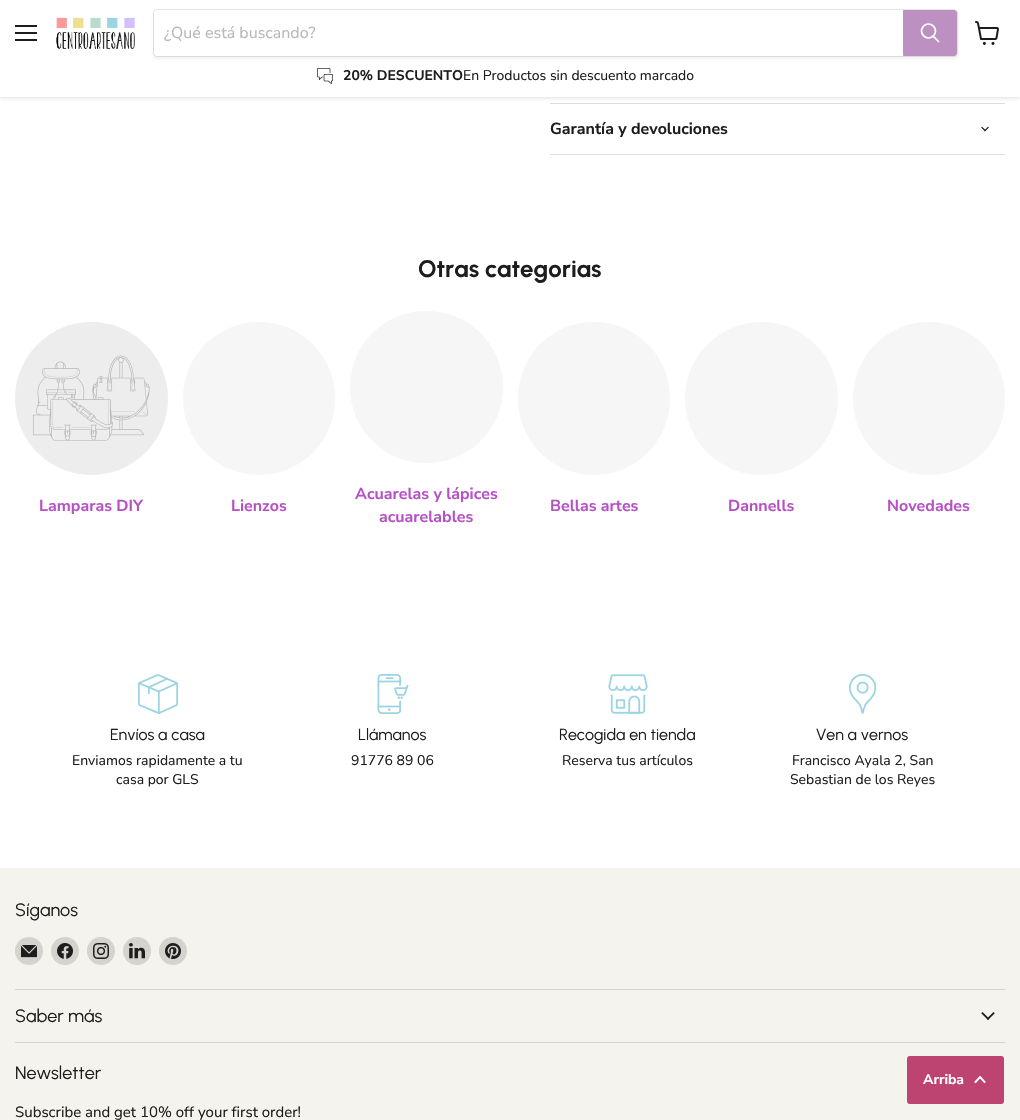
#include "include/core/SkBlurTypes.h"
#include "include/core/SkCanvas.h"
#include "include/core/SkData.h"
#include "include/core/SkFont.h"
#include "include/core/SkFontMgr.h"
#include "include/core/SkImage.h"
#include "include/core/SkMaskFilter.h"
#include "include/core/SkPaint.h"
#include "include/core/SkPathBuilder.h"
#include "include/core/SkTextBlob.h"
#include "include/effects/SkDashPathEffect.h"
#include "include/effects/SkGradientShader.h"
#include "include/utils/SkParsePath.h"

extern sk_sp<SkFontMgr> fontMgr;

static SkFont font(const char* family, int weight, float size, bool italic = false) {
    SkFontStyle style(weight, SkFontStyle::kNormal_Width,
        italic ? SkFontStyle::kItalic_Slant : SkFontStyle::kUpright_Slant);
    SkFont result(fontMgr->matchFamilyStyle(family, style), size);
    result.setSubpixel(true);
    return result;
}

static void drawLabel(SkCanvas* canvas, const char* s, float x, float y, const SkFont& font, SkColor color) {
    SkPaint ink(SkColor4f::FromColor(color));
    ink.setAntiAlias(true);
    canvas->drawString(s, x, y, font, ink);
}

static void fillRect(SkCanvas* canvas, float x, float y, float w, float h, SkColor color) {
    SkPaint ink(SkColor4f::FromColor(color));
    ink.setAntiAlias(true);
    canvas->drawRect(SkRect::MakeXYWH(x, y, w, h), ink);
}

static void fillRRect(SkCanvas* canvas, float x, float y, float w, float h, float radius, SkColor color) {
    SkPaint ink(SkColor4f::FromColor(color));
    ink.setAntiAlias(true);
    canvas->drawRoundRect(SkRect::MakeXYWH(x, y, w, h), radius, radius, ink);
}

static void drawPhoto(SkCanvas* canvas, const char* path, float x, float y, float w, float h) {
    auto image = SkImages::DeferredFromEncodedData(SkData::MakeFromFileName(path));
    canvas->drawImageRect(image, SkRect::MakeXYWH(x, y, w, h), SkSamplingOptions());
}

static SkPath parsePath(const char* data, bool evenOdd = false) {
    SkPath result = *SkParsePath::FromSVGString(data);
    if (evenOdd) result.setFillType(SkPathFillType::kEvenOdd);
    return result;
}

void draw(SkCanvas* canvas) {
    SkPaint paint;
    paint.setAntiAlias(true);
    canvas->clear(0xFFFFFFFF);
    fillRect(canvas, 550, 103, 455, 1, 0xFFDDDDDD);
    paint.setColor(0x40808080);
    paint.setMaskFilter(SkMaskFilter::MakeBlur(kNormal_SkBlurStyle, 2));
    canvas->drawRect(SkRect::MakeXYWH(0, 1, 1020, 97), paint);
    paint.setMaskFilter(nullptr);
    fillRect(canvas, 0, 0, 1020, 97, 0xFFFFFFFF);
    fillRect(canvas, 15, 25, 22, 2, 0xFF1D1D1D);
    fillRect(canvas, 15, 32, 22, 2, 0xFF1D1D1D);
    fillRect(canvas, 15, 39, 22, 2, 0xFF1D1D1D);
    drawPhoto(canvas, "assets/img1.png", 56, 17, 79, 32);
    paint.setColor(0x1C808080);
    paint.setMaskFilter(SkMaskFilter::MakeBlur(kNormal_SkBlurStyle, 1.5f));
    canvas->drawRoundRect(SkRect::MakeXYWH(153, 11, 805, 48), 4, 4, paint);
    paint.setMaskFilter(nullptr);
    paint.setStroke(true);
    paint.setStrokeWidth(1);
    paint.setColor(0x33808080);
    canvas->drawRoundRect(SkRect::MakeXYWH(153.5f, 9.5f, 804, 47), 3.5f, 3.5f, paint);
    paint.setStroke(false);
    paint.setColor(0xFFFFFFFF);
    canvas->drawPath(parsePath("M157 10H903V56H157C155.5 56 154 54.5 154 53V13C154 11.5 155.5 10 157 10Z"), paint);
    SkFont font1 = font("Nunito Sans", 400, 16);
    drawLabel(canvas, "¿Qué está buscando?", 164, 38, font1, 0xFFB8B8B8);
    paint.setColor(0xFFBC91C1);
    canvas->drawPath(parsePath("M903.5 10.5H954C955.5 10.5 956.5 11.5 956.5 13V53C956.5 54.5 955.5 55.5 954 55.5H903.5Z"), paint);
    paint.setStroke(true);
    canvas->drawPath(parsePath("M903.5 10.5H954C955.5 10.5 956.5 11.5 956.5 13V53C956.5 54.5 955.5 55.5 954 55.5H903.5Z"), paint);
    paint.setStrokeWidth(1.7f);
    paint.setStrokeCap(SkPaint::kRound_Cap);
    paint.setColor(0xFFFFFFFF);
    canvas->drawPath(parsePath("M938.5 41.5L933.5 36.5"), paint);
    paint.setStrokeCap(SkPaint::kButt_Cap);
    canvas->drawCircle(928.5f, 31, 7, paint);
    drawPhoto(canvas, "assets/img2.png", 317, 68, 16, 16);
    SkFont font2 = font("Nunito Sans", 700, 14);
    drawLabel(canvas, "20% DESCUENTO", 343, 80, font2, 0xFF1D1D1D);
    SkFont font3 = font("Nunito Sans", 400, 14);
    drawLabel(canvas, "En Productos sin descuento marcado", 463, 80, font3, 0xFF1D1D1D);
    drawPhoto(canvas, "assets/img3.png", 975, 21, 24, 24);
    fillRect(canvas, 550, 154, 455, 1, 0xFFDDDDDD);
    SkFont font4 = font("Nunito Sans", 700, 16);
    drawLabel(canvas, "Garantía y devoluciones", 550, 134, font4, 0xFF1D1D1D);
    drawPhoto(canvas, "assets/img4.png", 981, 126, 8, 6);
    SkFont font5 = font("Urbanist", 700, 24);
    drawLabel(canvas, "Otras categorias", 418, 277, font5, 0xFF1D1D1D);
    paint.setStroke(false);
    paint.setColor(0xFFEDEDED);
    canvas->drawCircle(91.5f, 398.5f, 76.5f, paint);
    drawPhoto(canvas, "assets/img5.png", 32, 355, 118, 86);
    drawLabel(canvas, "Lamparas DIY", 39, 511, font4, 0xFFB651C4);
    fillRRect(canvas, 183, 322, 152, 153, 76, 0xFFF6F6F6);
    drawLabel(canvas, "Lienzos", 231, 511, font4, 0xFFB651C4);
    fillRRect(canvas, 350, 311, 153, 152, 76, 0xFFF6F6F6);
    drawLabel(canvas, "Acuarelas y lápices", 355, 499, font4, 0xFFB651C4);
    drawLabel(canvas, "acuarelables", 379, 522, font4, 0xFFB651C4);
    fillRRect(canvas, 518, 322, 152, 153, 76, 0xFFF6F6F6);
    drawLabel(canvas, "Bellas artes", 550, 511, font4, 0xFFB651C4);
    paint.setColor(0xFFF6F6F6);
    canvas->drawCircle(761.5f, 398.5f, 76.5f, paint);
    drawLabel(canvas, "Dannells", 728, 511, font4, 0xFFB651C4);
    fillRRect(canvas, 853, 322, 152, 153, 76, 0xFFF6F6F6);
    drawLabel(canvas, "Novedades", 887, 511, font4, 0xFFB651C4);
    drawPhoto(canvas, "assets/img6.png", 138, 674, 40, 40);
    SkFont font6 = font("Urbanist", 400, 16);
    drawLabel(canvas, "Envíos a casa", 110, 740, font6, 0xFF1D1D1D);
    drawLabel(canvas, "Enviamos rapidamente a tu", 72, 765, font3, 0xFF1D1D1D);
    drawLabel(canvas, "casa por GLS", 116, 784, font3, 0xFF1D1D1D);
    drawPhoto(canvas, "assets/img7.png", 377, 674, 32, 40);
    drawLabel(canvas, "Llámanos", 358, 740, font6, 0xFF1D1D1D);
    drawLabel(canvas, "91776 89 06", 351, 765, font3, 0xFF1D1D1D);
    drawPhoto(canvas, "assets/img8.png", 608, 674, 40, 40);
    drawLabel(canvas, "Recogida en tienda", 559, 740, font6, 0xFF1D1D1D);
    drawLabel(canvas, "Reserva tus artículos", 562, 765, font3, 0xFF1D1D1D);
    drawPhoto(canvas, "assets/img9.png", 849, 674, 27, 40);
    drawLabel(canvas, "Ven a vernos", 816, 740, font6, 0xFF1D1D1D);
    drawLabel(canvas, "Francisco Ayala 2, San", 792, 765, font3, 0xFF1D1D1D);
    drawLabel(canvas, "Sebastian de los Reyes", 790, 784, font3, 0xFF1D1D1D);
    fillRect(canvas, 0, 868, 1020, 252, 0xFFF5F3ED);
    fillRect(canvas, 15, 989, 990, 1, 0xFFD5D3CE);
    SkFont font7 = font("Urbanist", 400, 18);
    drawLabel(canvas, "Síganos", 15, 916, font7, 0xFF1D1D1D);
    paint.setColor(0xFFD5D3CE);
    canvas->drawCircle(29, 951, 14, paint);
    drawPhoto(canvas, "assets/img10.png", 21, 945, 16, 13);
    canvas->drawCircle(65, 951, 14, paint);
    drawPhoto(canvas, "assets/img11.png", 57, 943, 16, 16);
    canvas->drawCircle(101, 951, 14, paint);
    drawPhoto(canvas, "assets/img12.png", 93, 943, 16, 16);
    canvas->drawCircle(137, 951, 14, paint);
    drawPhoto(canvas, "assets/img13.png", 129, 943, 16, 16);
    canvas->drawCircle(173, 951, 14, paint);
    drawPhoto(canvas, "assets/img14.png", 165, 943, 16, 16);
    fillRect(canvas, 15, 1042, 990, 1, 0xFFD5D3CE);
    drawLabel(canvas, "Saber más", 15, 1022, font7, 0xFF1D1D1D);
    drawPhoto(canvas, "assets/img15.png", 981, 1012, 14, 8);
    drawLabel(canvas, "Newsletter", 15, 1079, font7, 0xFF1D1D1D);
    SkFont font8 = font("Nunito Sans", 400, 15);
    drawLabel(canvas, "Subscribe and get 10% off your first order!", 15, 1117, font8, 0xFF1D1D1D);
    fillRRect(canvas, 907, 1056, 97, 48, 3, 0xFFBD4371);
    drawLabel(canvas, "Arriba", 923, 1084, font2, 0xFFFFFFFF);
    paint.setStroke(true);
    paint.setStrokeWidth(1.9f);
    paint.setStrokeCap(SkPaint::kSquare_Cap);
    paint.setColor(0xFFFFFFFF);
    canvas->drawPath(parsePath("M980 1077L975.5 1082M980 1077L984.5 1082"), paint);
}
